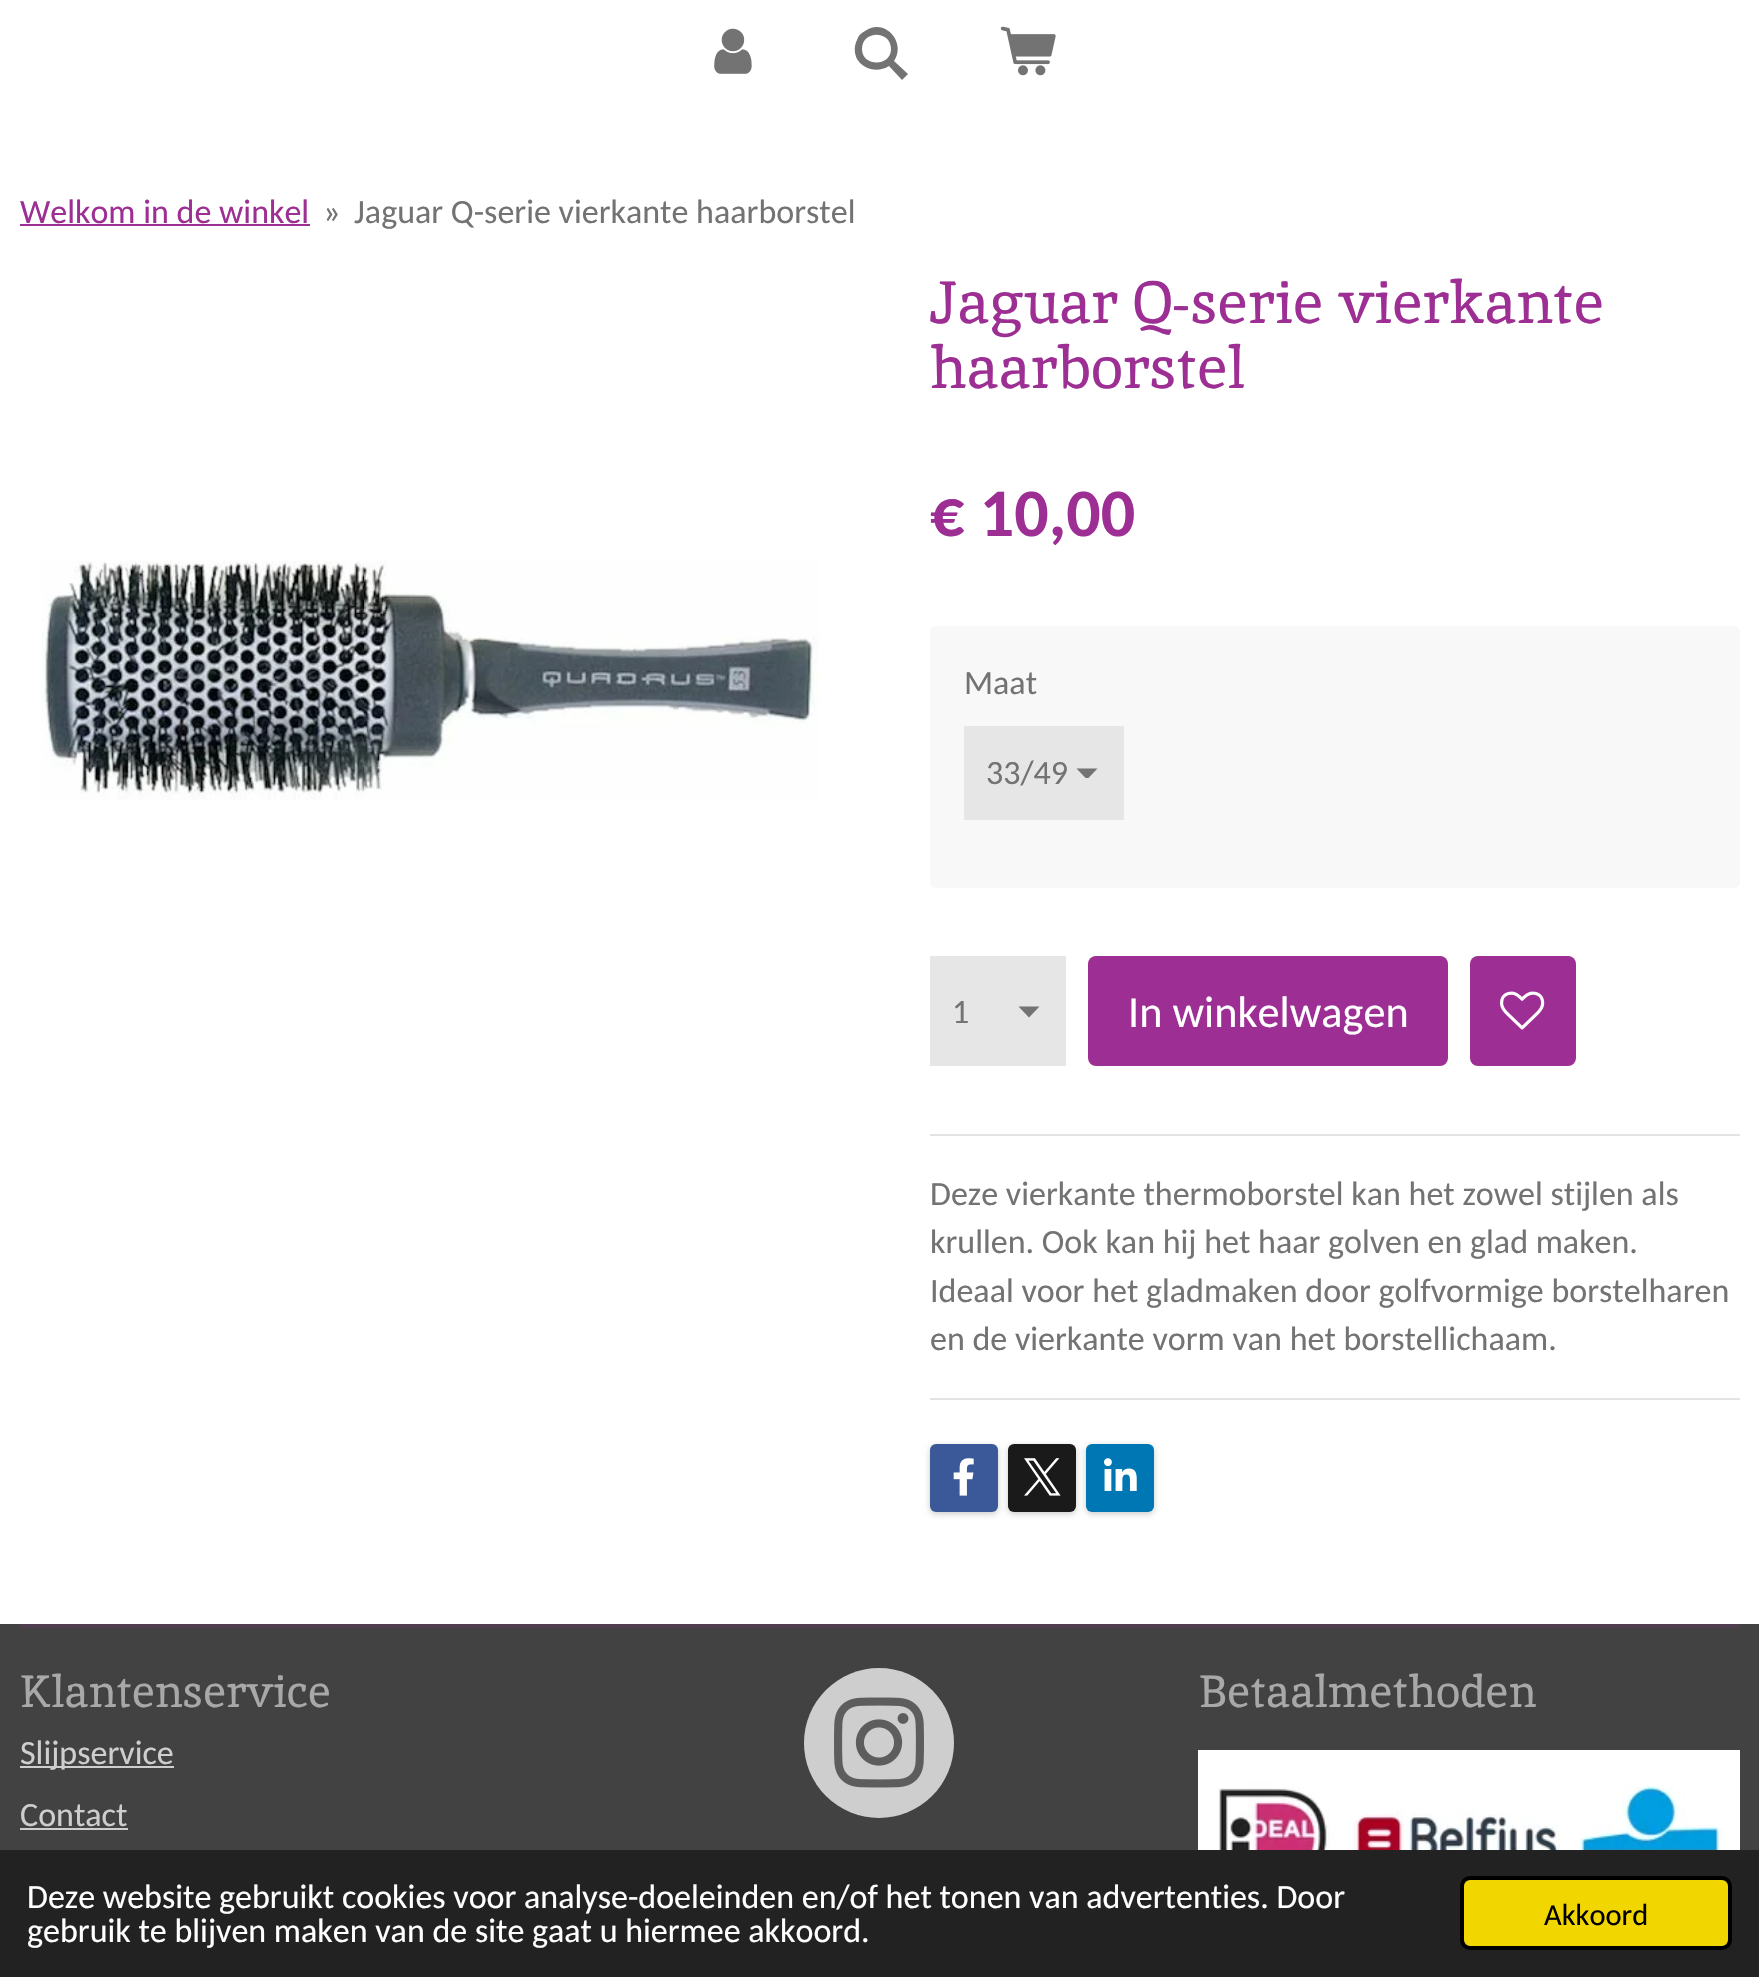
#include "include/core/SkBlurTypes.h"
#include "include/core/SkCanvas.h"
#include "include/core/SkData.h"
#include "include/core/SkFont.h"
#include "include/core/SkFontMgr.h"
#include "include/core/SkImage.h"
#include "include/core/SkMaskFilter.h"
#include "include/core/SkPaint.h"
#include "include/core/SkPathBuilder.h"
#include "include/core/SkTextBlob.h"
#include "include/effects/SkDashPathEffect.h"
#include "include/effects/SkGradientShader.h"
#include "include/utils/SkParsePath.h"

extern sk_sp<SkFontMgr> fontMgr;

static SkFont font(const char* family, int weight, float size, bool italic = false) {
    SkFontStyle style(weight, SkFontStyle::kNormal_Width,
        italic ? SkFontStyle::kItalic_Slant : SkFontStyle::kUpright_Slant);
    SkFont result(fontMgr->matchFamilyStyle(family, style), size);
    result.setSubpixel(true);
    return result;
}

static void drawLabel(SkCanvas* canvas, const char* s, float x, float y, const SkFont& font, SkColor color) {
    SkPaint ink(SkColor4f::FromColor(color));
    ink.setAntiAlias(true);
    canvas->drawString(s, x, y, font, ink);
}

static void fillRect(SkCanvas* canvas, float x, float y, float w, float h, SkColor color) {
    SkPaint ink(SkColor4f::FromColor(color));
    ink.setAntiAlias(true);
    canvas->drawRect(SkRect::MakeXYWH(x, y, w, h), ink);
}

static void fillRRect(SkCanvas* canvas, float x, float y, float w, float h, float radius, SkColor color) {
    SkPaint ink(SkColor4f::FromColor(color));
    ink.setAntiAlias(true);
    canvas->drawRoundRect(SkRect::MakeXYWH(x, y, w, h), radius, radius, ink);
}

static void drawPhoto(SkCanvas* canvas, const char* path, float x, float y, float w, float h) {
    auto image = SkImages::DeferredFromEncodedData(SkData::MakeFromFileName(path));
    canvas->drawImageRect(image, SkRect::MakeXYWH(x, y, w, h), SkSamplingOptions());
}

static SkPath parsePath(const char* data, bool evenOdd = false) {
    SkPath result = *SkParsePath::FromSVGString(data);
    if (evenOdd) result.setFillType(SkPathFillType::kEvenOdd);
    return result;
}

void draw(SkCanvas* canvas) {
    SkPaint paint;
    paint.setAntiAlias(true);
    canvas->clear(0xFFFFFFFF);
    drawPhoto(canvas, "assets/img1.png", 714, 28, 38, 46);
    paint.setColor(0xFF737373);
    canvas->drawPath(parsePath("M894 61L908 74L902 80L889 66C878 73 864 70 857 59C854 53 854 46 857 40C858 36 861 33 865 31C884 17 907 42 894 61ZM891 49C891 30 862 30 862 49C862 67 891 67 891 49Z"), paint);
    drawPhoto(canvas, "assets/img2.png", 1000, 26, 56, 50);
    SkFont font1 = font("Carlito", 400, 34);
    drawLabel(canvas, "Welkom in de winkel", 20, 223, font1, 0xFF9D2F94);
    fillRect(canvas, 20, 224, 290, 2, 0xFF9D2F94);
    drawLabel(canvas, "»", 323, 223, font1, 0xFF737373);
    drawLabel(canvas, "Jaguar Q-serie vierkante haarborstel", 354, 223, font1, 0xFF737373);
    SkFont font2 = font("Inika", 400, 59.4f);
    drawLabel(canvas, "Jaguar Q-serie vierkante", 930, 323, font2, 0xFF9D2F94);
    drawLabel(canvas, "haarborstel", 930, 388, font2, 0xFF9D2F94);
    drawPhoto(canvas, "assets/img3.png", 41, 559, 778, 241);
    SkFont font3 = font("Carlito", 700, 68);
    drawLabel(canvas, "€ 10,00", 930, 536, font3, 0xFF9D2F94);
    fillRRect(canvas, 930, 626, 810, 262, 6, 0xFFF8F8F8);
    drawLabel(canvas, "Maat", 964, 694, font1, 0xFF737373);
    fillRect(canvas, 964, 726, 160, 94, 0xFFE6E6E6);
    canvas->save();
    canvas->clipRect(SkRect::MakeXYWH(1076, 768, 22, 10));
    canvas->drawPath(parsePath("M1087 779.5L1076.5 768.5H1097.5Z"), paint);
    canvas->restore();
    drawLabel(canvas, "33/49", 986, 784, font1, 0xFF737373);
    fillRect(canvas, 930, 956, 136, 110, 0xFFE6E6E6);
    canvas->drawPath(parsePath("M1029 1017.5L1018.5 1006.5H1039.5Z"), paint);
    drawLabel(canvas, "1", 952, 1023, font1, 0xFF737373);
    fillRRect(canvas, 1088, 956, 360, 110, 8, 0xFF9D2F94);
    SkFont font4 = font("Carlito", 400, 44.25f);
    drawLabel(canvas, "In winkelwagen", 1128, 1027, font4, 0xFFFFFFFF);
    fillRRect(canvas, 1470, 956, 106, 110, 8, 0xFF9D2F94);
    drawPhoto(canvas, "assets/img4.png", 1500, 991, 45, 39);
    fillRect(canvas, 930, 1134, 810, 2, 0xFFE3E3E3);
    drawLabel(canvas, "Deze vierkante thermoborstel kan het zowel stijlen als", 930, 1205, font1, 0xFF737373);
    drawLabel(canvas, "krullen. Ook kan hij het haar golven en glad maken.", 930, 1253, font1, 0xFF737373);
    drawLabel(canvas, "Ideaal voor het gladmaken door golfvormige borstelharen", 930, 1302, font1, 0xFF737373);
    drawLabel(canvas, "en de vierkante vorm van het borstellichaam.", 930, 1350, font1, 0xFF737373);
    fillRect(canvas, 930, 1398, 810, 2, 0xFFE3E3E3);
    paint.setColor(0x33000000);
    paint.setMaskFilter(SkMaskFilter::MakeBlur(kNormal_SkBlurStyle, 3));
    canvas->drawRoundRect(SkRect::MakeXYWH(930, 1446, 68, 68), 6, 6, paint);
    paint.setMaskFilter(nullptr);
    fillRRect(canvas, 930, 1444, 68, 68, 6, 0xFF3B5998);
    drawPhoto(canvas, "assets/img5.png", 953, 1458, 21, 38);
    paint.setMaskFilter(SkMaskFilter::MakeBlur(kNormal_SkBlurStyle, 3));
    canvas->drawRoundRect(SkRect::MakeXYWH(1008, 1446, 68, 68), 6, 6, paint);
    paint.setMaskFilter(nullptr);
    fillRRect(canvas, 1008, 1444, 68, 68, 6, 0xFF1A1A1A);
    drawPhoto(canvas, "assets/img6.png", 1024, 1458, 37, 38);
    paint.setMaskFilter(SkMaskFilter::MakeBlur(kNormal_SkBlurStyle, 3));
    canvas->drawRoundRect(SkRect::MakeXYWH(1086, 1446, 68, 68), 6, 6, paint);
    paint.setMaskFilter(nullptr);
    fillRRect(canvas, 1086, 1444, 68, 68, 6, 0xFF0077B5);
    drawPhoto(canvas, "assets/img7.png", 1104, 1458, 33, 33);
    fillRect(canvas, 0, 1624, 1759, 226, 0xFF424242);
    fillRect(canvas, 20, 1624, 1720, 4, 0xFF503F4E);
    SkFont font5 = font("Inika", 400, 45);
    drawLabel(canvas, "Klantenservice", 20, 1707, font5, 0xFFA8A8A8);
    fillRect(canvas, 20, 1766, 154, 2, 0xFFCECECE);
    drawLabel(canvas, "Slijpservice", 20, 1764, font1, 0xFFCECECE);
    drawLabel(canvas, "Contact", 20, 1826, font1, 0xFFCECECE);
    fillRect(canvas, 20, 1828, 108, 2, 0xFFCECECE);
    paint.setColor(0xFFCECECE);
    canvas->drawCircle(879, 1743, 75, paint);
    drawPhoto(canvas, "assets/img8.png", 834, 1697, 90, 91);
    drawLabel(canvas, "Betaalmethoden", 1199, 1707, font5, 0xFFA8A8A8);
    drawPhoto(canvas, "assets/img9.png", 1198, 1750, 542, 100);
    fillRect(canvas, 0, 1850, 1759, 127, 0xFF222222);
    drawLabel(canvas, "Deze website gebruikt cookies voor analyse-doeleinden en/of het tonen van advertenties. Door", 27, 1908, font1, 0xFFFFFFFF);
    drawLabel(canvas, "gebruik te blijven maken van de site gaat u hiermee akkoord.", 27, 1942, font1, 0xFFFFFFFF);
    paint.setColor(0xFFF1D600);
    canvas->drawRoundRect(SkRect::MakeXYWH(1462, 1878, 268, 70), 8, 8, paint);
    paint.setStroke(true);
    paint.setStrokeWidth(4);
    paint.setColor(0xFF000000);
    canvas->drawRoundRect(SkRect::MakeXYWH(1462, 1878, 268, 70), 8, 8, paint);
    SkFont font6 = font("Carlito", 400, 30.5f);
    drawLabel(canvas, "Akkoord", 1544, 1925, font6, 0xFF000000);
}
